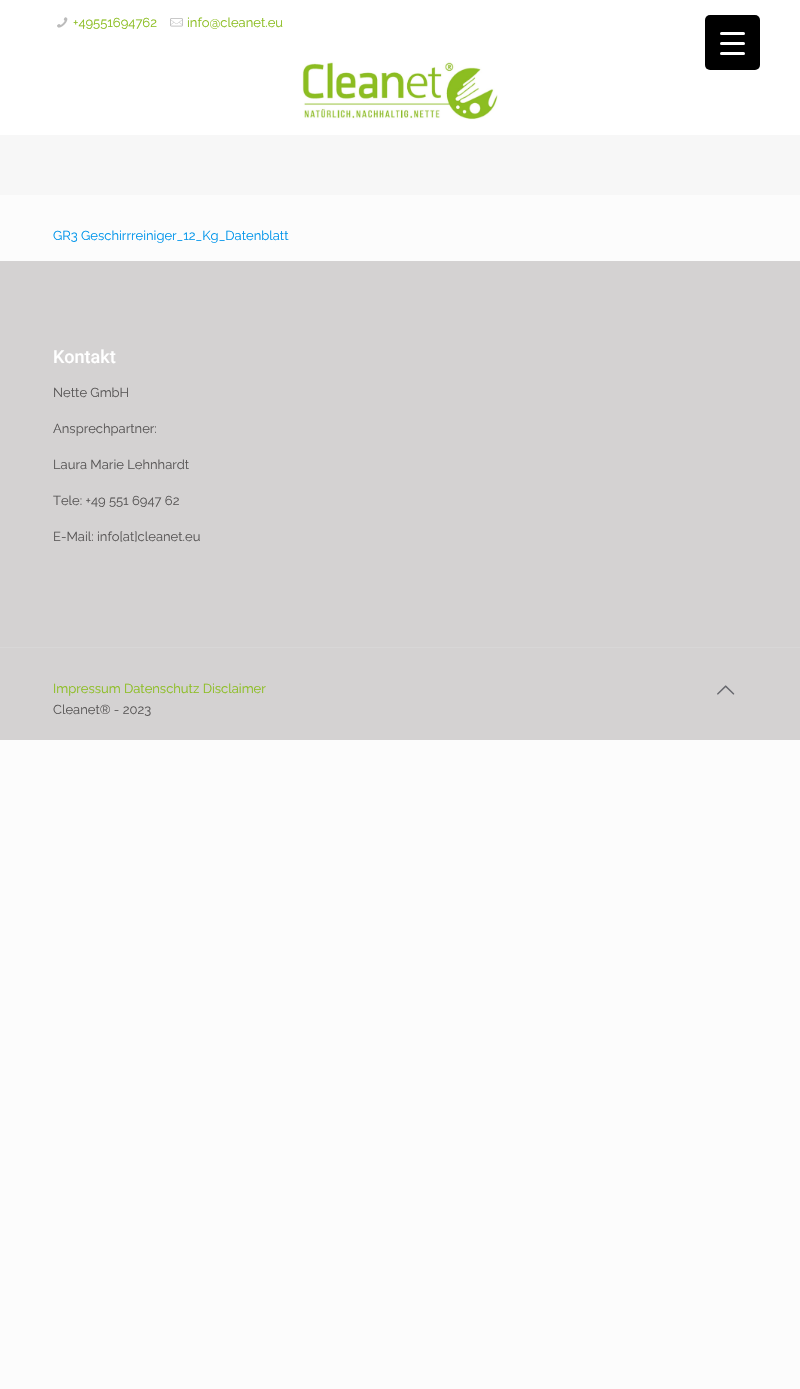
#include "include/core/SkBlurTypes.h"
#include "include/core/SkCanvas.h"
#include "include/core/SkData.h"
#include "include/core/SkFont.h"
#include "include/core/SkFontMgr.h"
#include "include/core/SkImage.h"
#include "include/core/SkMaskFilter.h"
#include "include/core/SkPaint.h"
#include "include/core/SkPathBuilder.h"
#include "include/core/SkTextBlob.h"
#include "include/effects/SkDashPathEffect.h"
#include "include/effects/SkGradientShader.h"
#include "include/utils/SkParsePath.h"

extern sk_sp<SkFontMgr> fontMgr;

static SkFont font(const char* family, int weight, float size, bool italic = false) {
    SkFontStyle style(weight, SkFontStyle::kNormal_Width,
        italic ? SkFontStyle::kItalic_Slant : SkFontStyle::kUpright_Slant);
    SkFont result(fontMgr->matchFamilyStyle(family, style), size);
    result.setSubpixel(true);
    return result;
}

static void drawLabel(SkCanvas* canvas, const char* s, float x, float y, const SkFont& font, SkColor color) {
    SkPaint ink(SkColor4f::FromColor(color));
    ink.setAntiAlias(true);
    canvas->drawString(s, x, y, font, ink);
}

static void fillRect(SkCanvas* canvas, float x, float y, float w, float h, SkColor color) {
    SkPaint ink(SkColor4f::FromColor(color));
    ink.setAntiAlias(true);
    canvas->drawRect(SkRect::MakeXYWH(x, y, w, h), ink);
}

static void fillRRect(SkCanvas* canvas, float x, float y, float w, float h, float radius, SkColor color) {
    SkPaint ink(SkColor4f::FromColor(color));
    ink.setAntiAlias(true);
    canvas->drawRoundRect(SkRect::MakeXYWH(x, y, w, h), radius, radius, ink);
}

static void drawPhoto(SkCanvas* canvas, const char* path, float x, float y, float w, float h) {
    auto image = SkImages::DeferredFromEncodedData(SkData::MakeFromFileName(path));
    canvas->drawImageRect(image, SkRect::MakeXYWH(x, y, w, h), SkSamplingOptions());
}

void draw(SkCanvas* canvas) {
    SkPaint paint;
    paint.setAntiAlias(true);
    canvas->clear(0xFFFCFCFC);
    fillRect(canvas, 0, 0, 800, 135, 0xFFFFFFFF);
    drawPhoto(canvas, "assets/img1.png", 57, 17, 11, 11);
    SkFont font1 = font("Raleway", 400, 13);
    drawLabel(canvas, "+49551694762", 73, 27, font1, 0xFF8CBE22);
    drawPhoto(canvas, "assets/img2.png", 170, 18, 13, 9);
    drawLabel(canvas, "info@cleanet.eu", 187, 27, font1, 0xFF8CBE22);
    drawPhoto(canvas, "assets/img3.png", 302, 61, 196, 59);
    fillRect(canvas, 0, 135, 800, 60, 0xFFF7F7F7);
    drawLabel(canvas, "GR3 Geschirrreiniger_12_Kg_Datenblatt", 53, 240, font1, 0xFF0095EB);
    fillRect(canvas, 0, 261, 800, 479, 0xFFD4D2D2);
    SkFont font2 = font("Roboto", 500, 18);
    drawLabel(canvas, "Kontakt", 53, 363, font2, 0xFFFFFFFF);
    drawLabel(canvas, "Nette GmbH", 53, 397, font1, 0xFF5A5858);
    drawLabel(canvas, "Ansprechpartner:", 53, 433, font1, 0xFF5A5858);
    drawLabel(canvas, "Laura Marie Lehnhardt", 53, 469, font1, 0xFF5A5858);
    drawLabel(canvas, "Tele: +49 551 6947 62", 53, 505, font1, 0xFF5A5858);
    drawLabel(canvas, "E-Mail: info[at]cleanet.eu", 53, 541, font1, 0xFF5A5858);
    fillRect(canvas, 0, 647, 800, 1, 0xFFD8D7D7);
    drawLabel(canvas, "Impressum Datenschutz Disclaimer", 53, 693, font1, 0xFF8CBE22);
    drawLabel(canvas, "Cleanet® - 2023", 53, 714, font1, 0xFF5A5858);
    drawPhoto(canvas, "assets/img4.png", 717, 685, 18, 10);
    fillRRect(canvas, 705, 15, 55, 55, 5, 0xFF000000);
    fillRRect(canvas, 720, 42, 25, 3, 1.5f, 0xFFFFFFFF);
    fillRRect(canvas, 720, 32, 25, 3, 1.5f, 0xFFFFFFFF);
    fillRRect(canvas, 720, 52, 25, 3, 1.5f, 0xFFFFFFFF);
}
